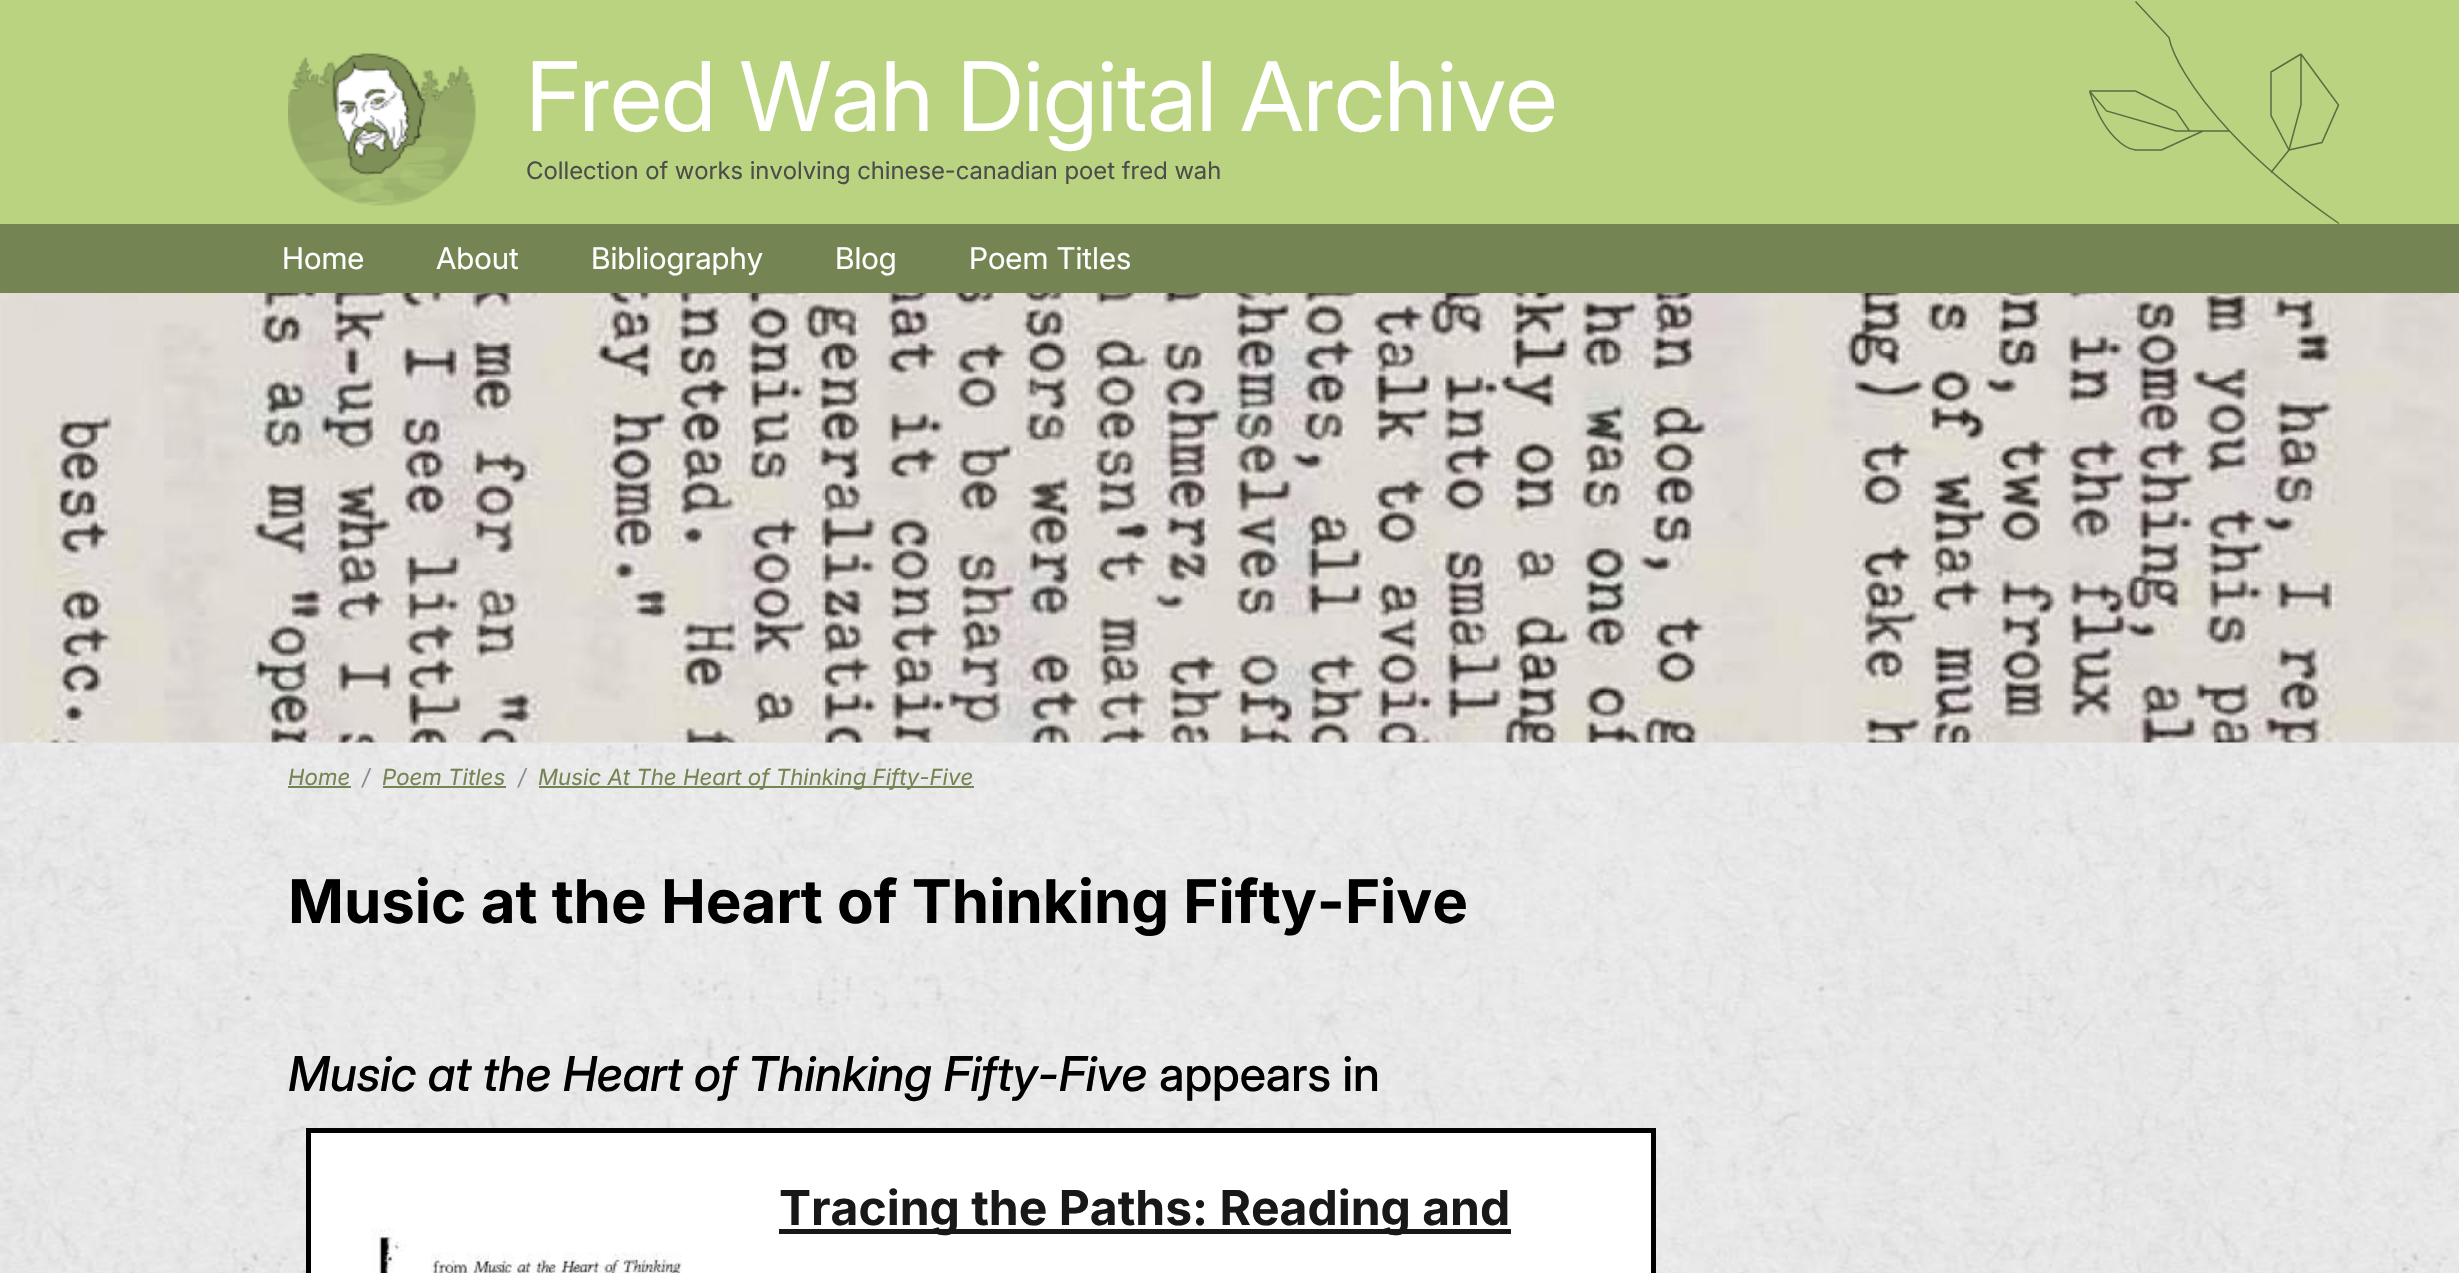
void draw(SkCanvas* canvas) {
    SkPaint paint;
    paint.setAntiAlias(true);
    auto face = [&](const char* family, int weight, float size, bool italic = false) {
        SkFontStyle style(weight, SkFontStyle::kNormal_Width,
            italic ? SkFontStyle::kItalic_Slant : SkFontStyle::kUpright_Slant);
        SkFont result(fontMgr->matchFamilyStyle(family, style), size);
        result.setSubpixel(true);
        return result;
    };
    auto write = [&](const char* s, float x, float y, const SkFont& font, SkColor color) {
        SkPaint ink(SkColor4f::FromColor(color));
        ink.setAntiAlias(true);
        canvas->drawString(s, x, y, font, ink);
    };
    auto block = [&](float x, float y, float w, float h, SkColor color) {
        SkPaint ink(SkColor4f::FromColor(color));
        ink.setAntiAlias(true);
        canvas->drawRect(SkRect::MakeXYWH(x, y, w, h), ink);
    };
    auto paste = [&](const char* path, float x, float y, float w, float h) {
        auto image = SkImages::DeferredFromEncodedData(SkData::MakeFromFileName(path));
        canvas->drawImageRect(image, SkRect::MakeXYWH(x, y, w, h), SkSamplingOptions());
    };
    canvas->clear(SK_ColorWHITE);
    paste("pic1.png", 0, 742, 2459, 531);
    block(0, 0, 2459, 224, SkColorSetRGB(185, 211, 128));
    paste("pic2.png", 288, 53, 188, 153);
    auto kFont1 = face("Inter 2", 400, 96);
    write("Fred Wah Digital Archive", 526, 131, kFont1, SK_ColorWHITE);
    auto kFont2 = face("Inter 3", 400, 24);
    write("Collection of works involving chinese-canadian poet fred wah", 526, 179, kFont2, SkColorSetRGB(76, 76, 76));
    paint.setStyle(SkPaint::kStroke_Style);
    paint.setStrokeWidth(1.5f);
    paint.setColor(SkColorSetRGB(93, 106, 64));
    canvas->drawPath(SkPathBuilder().moveTo(2271, 172.5f).lineTo(2289, 150).moveTo(2289, 150).lineTo(2301, 105).lineTo(2301, 54).moveTo(2289, 150).lineTo(2322, 142.5f).lineTo(2338.5f, 105).lineTo(2301, 54).moveTo(2289, 150).lineTo(2271, 115.5f).lineTo(2271, 72).lineTo(2301, 54).detach(), paint);
    block(0, 224, 2459, 69, SkColorSetRGB(116, 132, 82));
    paint.setStrokeWidth(1.4f);
    canvas->drawPath(SkPathBuilder().moveTo(2339, 223.5f).cubicTo(2291, 190.5f, 2255.5f, 159, 2229.5f, 131).moveTo(2135.5f, 1.5f).lineTo(2169, 37.5f).cubicTo(2172, 53.5f, 2189, 87.5f, 2229.5f, 131).moveTo(2229.5f, 131).lineTo(2203, 131).moveTo(2089.5f, 91).lineTo(2106.5f, 111).lineTo(2176, 131).lineTo(2189.5f, 131).moveTo(2089.5f, 91).cubicTo(2103.5f, 136, 2126, 149, 2135.5f, 150).lineTo(2161.5f, 150).lineTo(2203, 131).moveTo(2089.5f, 91).lineTo(2135.5f, 91).lineTo(2176, 111).lineTo(2189.5f, 131).moveTo(2203, 131).lineTo(2189.5f, 131).detach(), paint);
    auto kFont3 = face("Inter", 400, 30);
    write("Home", 282, 269, kFont3, SK_ColorWHITE);
    write("About", 436, 269, kFont3, SK_ColorWHITE);
    write("Bibliography", 591, 269, kFont3, SK_ColorWHITE);
    write("Blog", 835, 269, kFont3, SK_ColorWHITE);
    write("Poem Titles", 969, 269, kFont3, SK_ColorWHITE);
    paste("pic3.png", 0, 293, 2459, 450);
    auto kFont4 = face("Inter", 400, 22.25f, true);
    write("Home", 288, 785, kFont4, SkColorSetRGB(116, 132, 82));
    block(288, 786, 63, 2, SkColorSetRGB(116, 132, 82));
    write("/", 362, 785, kFont4, SkColorSetRGB(134, 142, 150));
    write("Poem Titles", 382, 785, kFont4, SkColorSetRGB(116, 132, 82));
    block(383, 786, 123, 2, SkColorSetRGB(116, 132, 82));
    write("/", 518, 785, kFont4, SkColorSetRGB(134, 142, 150));
    block(539, 786, 435, 2, SkColorSetRGB(116, 132, 82));
    write("Music At The Heart of Thinking Fifty-Five", 538, 785, kFont4, SkColorSetRGB(116, 132, 82));
    auto kFont5 = face("Inter", 700, 60);
    write("Music at the Heart of Thinking Fifty-Five", 288, 923, kFont5, SK_ColorBLACK);
    auto kFont6 = face("Inter", 500, 48, true);
    write("Music at the Heart of Thinking Fifty-Five", 288, 1091, kFont6, SK_ColorBLACK);
    auto kFont7 = face("Inter", 500, 48);
    write("appears in", 1159, 1091, kFont7, SK_ColorBLACK);
    paint.setStyle(SkPaint::kFill_Style);
    paint.setColor(SK_ColorWHITE);
    canvas->drawRect(SkRect::MakeXYWH(308.5f, 1130.5f, 1345, 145), paint);
    paint.setStyle(SkPaint::kStroke_Style);
    paint.setStrokeWidth(5);
    paint.setColor(SK_ColorBLACK);
    canvas->drawRect(SkRect::MakeXYWH(308.5f, 1130.5f, 1345, 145), paint);
    block(779, 1229, 732, 5, SkColorSetRGB(24, 24, 24));
    auto kFont8 = face("Inter", 700, 48);
    write("Tracing the Paths: Reading and", 779, 1225, kFont8, SkColorSetRGB(24, 24, 24));
    paste("pic4.png", 371, 1228, 311, 45);
}
